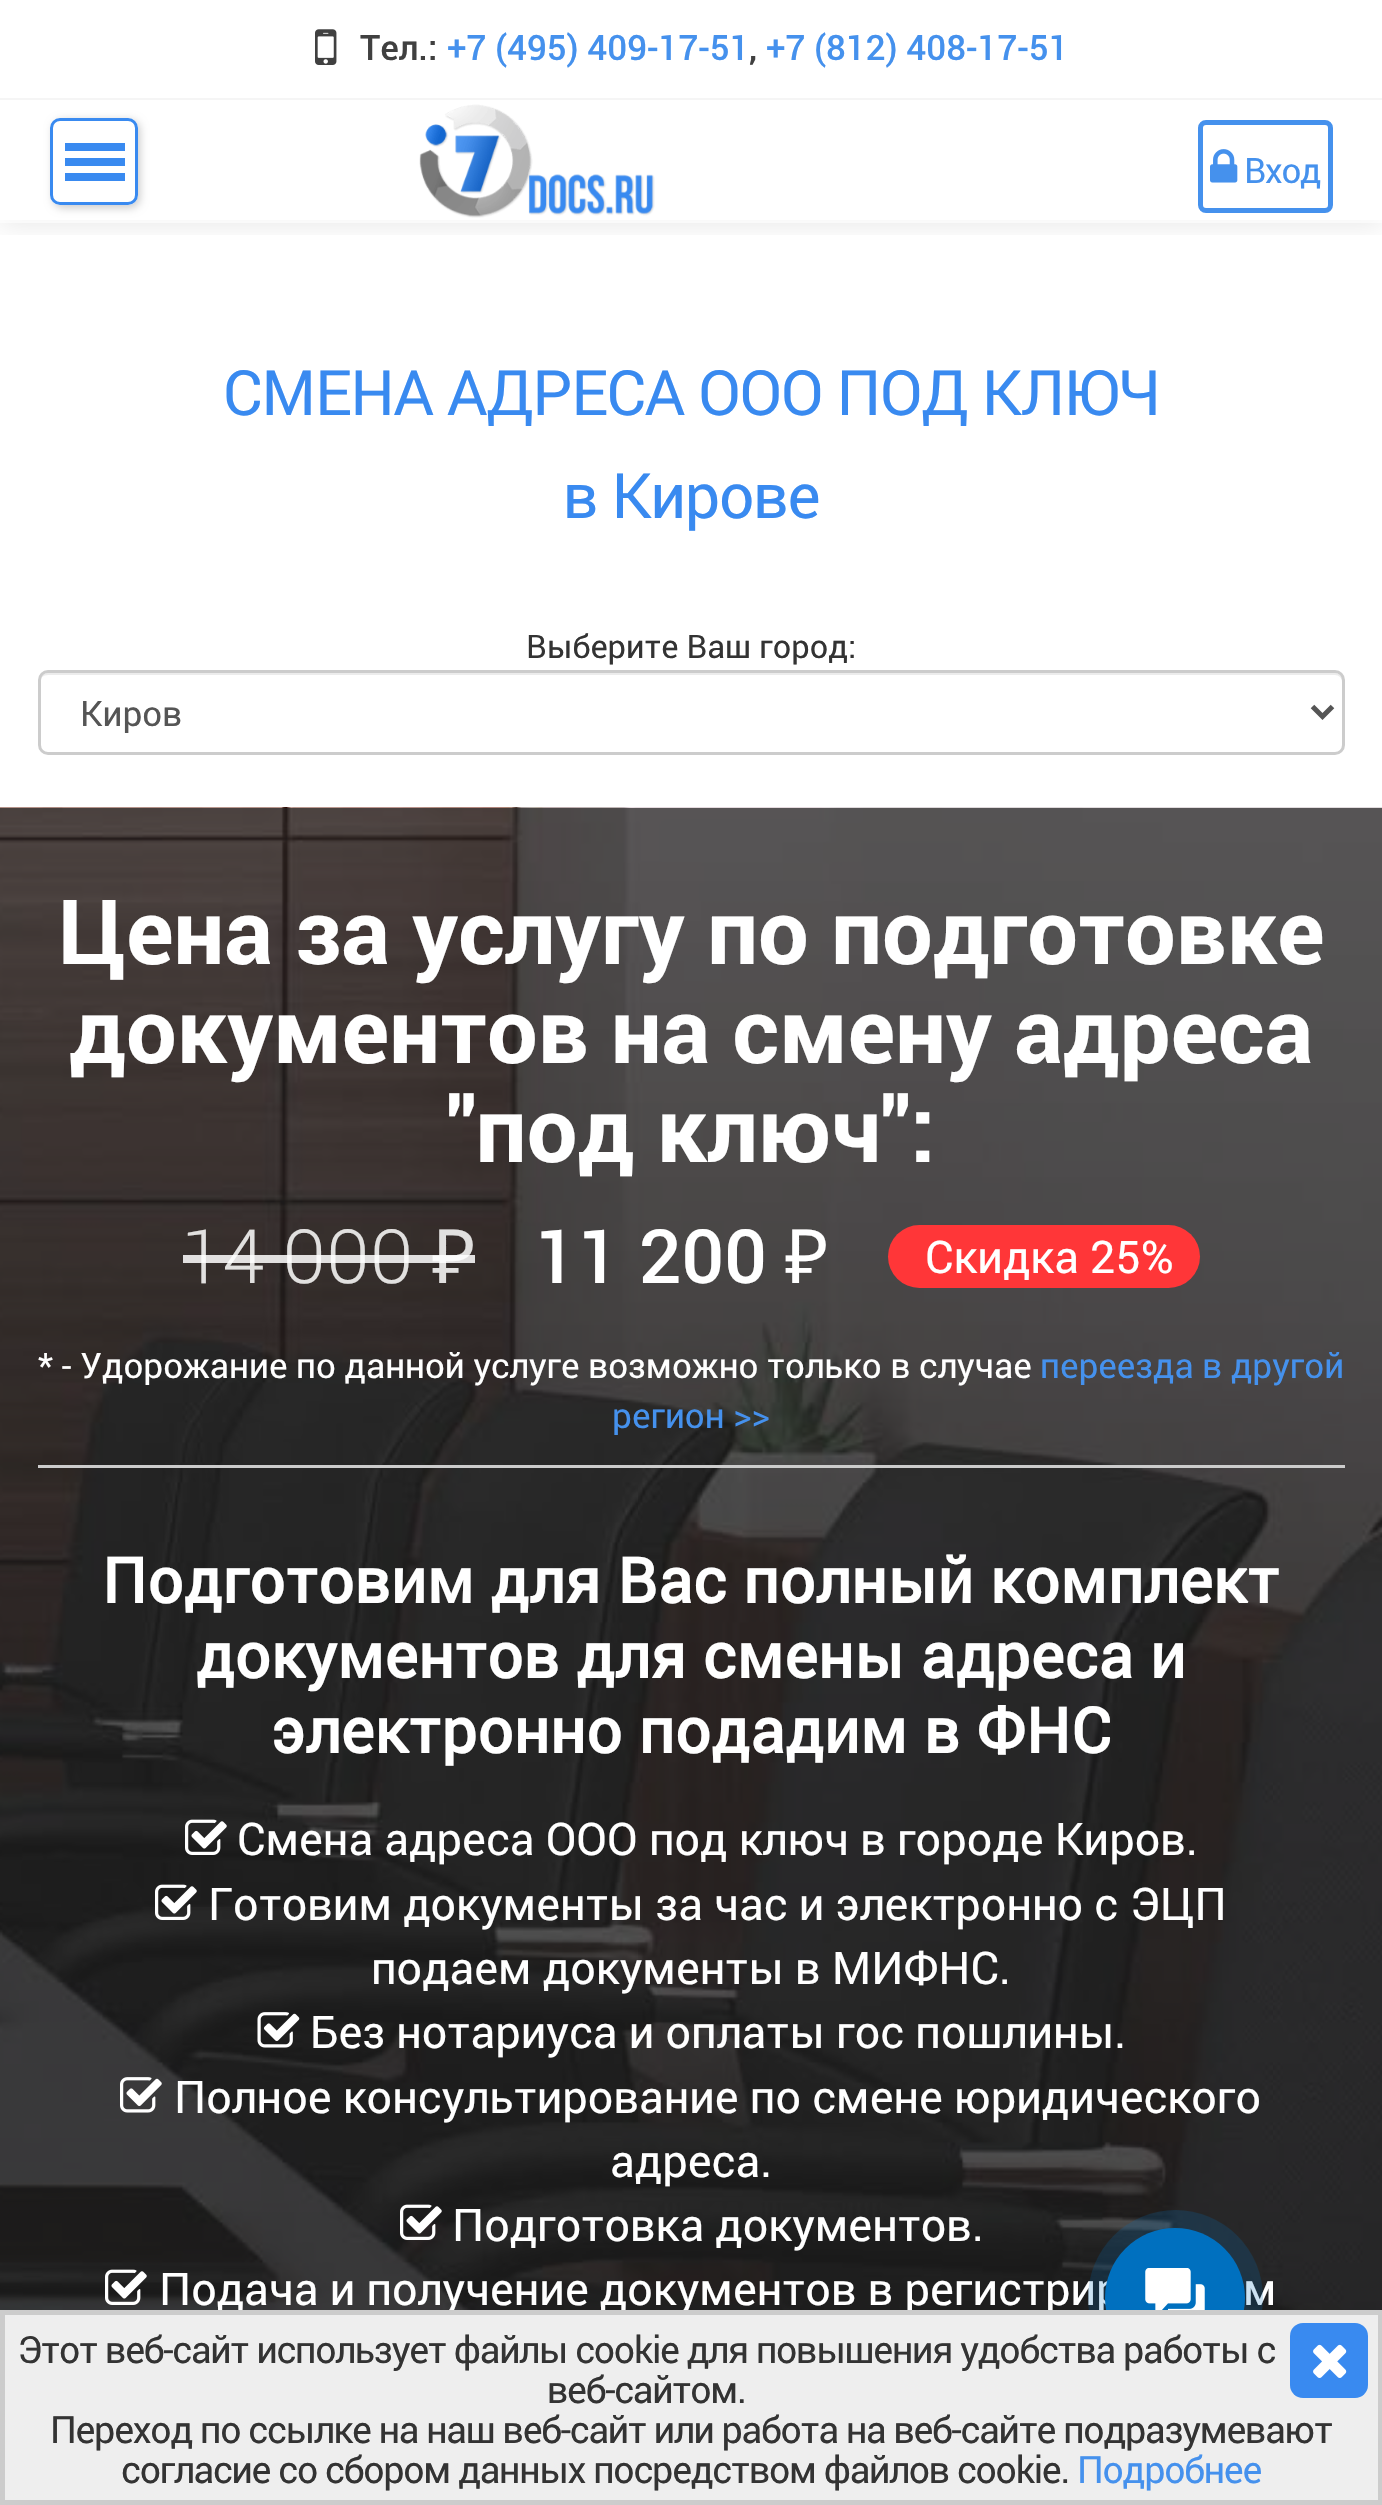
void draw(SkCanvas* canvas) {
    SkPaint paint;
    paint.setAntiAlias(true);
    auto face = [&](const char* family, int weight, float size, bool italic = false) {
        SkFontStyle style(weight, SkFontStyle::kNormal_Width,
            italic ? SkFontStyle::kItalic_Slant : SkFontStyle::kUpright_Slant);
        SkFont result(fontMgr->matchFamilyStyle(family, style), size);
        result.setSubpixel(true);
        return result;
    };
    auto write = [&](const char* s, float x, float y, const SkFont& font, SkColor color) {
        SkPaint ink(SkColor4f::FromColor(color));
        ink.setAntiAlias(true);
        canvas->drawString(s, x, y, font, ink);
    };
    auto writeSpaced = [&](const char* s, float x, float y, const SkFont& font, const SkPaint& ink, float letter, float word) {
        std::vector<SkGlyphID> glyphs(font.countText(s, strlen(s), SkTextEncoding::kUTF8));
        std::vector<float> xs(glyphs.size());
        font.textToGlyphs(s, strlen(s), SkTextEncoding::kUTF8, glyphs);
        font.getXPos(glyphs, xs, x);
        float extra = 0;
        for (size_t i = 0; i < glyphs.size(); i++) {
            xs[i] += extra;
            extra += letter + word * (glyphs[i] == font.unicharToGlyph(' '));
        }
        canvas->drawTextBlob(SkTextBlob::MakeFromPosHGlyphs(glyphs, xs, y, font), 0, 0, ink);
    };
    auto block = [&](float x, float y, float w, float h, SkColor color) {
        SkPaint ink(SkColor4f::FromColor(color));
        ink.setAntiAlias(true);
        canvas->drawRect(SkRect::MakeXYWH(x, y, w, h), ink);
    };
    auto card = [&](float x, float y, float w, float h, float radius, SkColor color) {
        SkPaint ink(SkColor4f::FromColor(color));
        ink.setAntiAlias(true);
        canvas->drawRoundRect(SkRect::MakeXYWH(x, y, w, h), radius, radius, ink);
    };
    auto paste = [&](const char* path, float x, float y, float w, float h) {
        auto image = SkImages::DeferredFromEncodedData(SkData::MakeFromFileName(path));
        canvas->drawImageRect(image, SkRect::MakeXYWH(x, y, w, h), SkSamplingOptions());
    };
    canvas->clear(SK_ColorWHITE);
    canvas->save();
    canvas->clipRect(SkRect::MakeXYWH(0, 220, 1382, 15));
    paint.setColor(SkColorSetARGB(23, 0, 0, 0));
    paint.setMaskFilter(SkMaskFilter::MakeBlur(kNormal_SkBlurStyle, 12.5f));
    canvas->drawRect(SkRect::MakeXYWH(0, 5, 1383, 220), paint);
    paint.setMaskFilter(nullptr);
    canvas->restore();
    block(0, 98, 1382, 2, SkColorSetRGB(245, 245, 245));
    paste("pic1.png", 315, 29, 22, 36);
    auto kFont1 = face("Roboto", 500, 35);
    write("Тел.:", 360, 60, kFont1, SkColorSetRGB(64, 64, 64));
    write("+7 (495) 409-17-51", 447, 60, kFont1, SkColorSetRGB(69, 145, 237));
    write(",", 749, 60, kFont1, SkColorSetRGB(64, 64, 64));
    write("+7 (812) 408-17-51", 766, 60, kFont1, SkColorSetRGB(69, 145, 237));
    paint.setColor(SkColorSetARGB(153, 255, 255, 255));
    canvas->drawPath(SkPathBuilder().moveTo(0, 220).lineTo(0, 223).lineTo(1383, 223).lineTo(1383, 103).lineTo(1382, 103).lineTo(1382, 220).close().detach(), paint);
    canvas->save();
    canvas->clipPath(SkPathBuilder(SkPathFillType::kEvenOdd).moveTo(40, 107).lineTo(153, 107).lineTo(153, 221).lineTo(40, 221).close().moveTo(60, 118).lineTo(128, 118).cubicTo(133.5f, 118, 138, 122.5f, 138, 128).lineTo(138, 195).cubicTo(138, 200.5f, 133.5f, 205, 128, 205).lineTo(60, 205).cubicTo(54.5f, 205, 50, 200.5f, 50, 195).lineTo(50, 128).cubicTo(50, 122.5f, 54.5f, 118, 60, 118).close().detach(), true);
    paint.setColor(SkColorSetARGB(51, 0, 0, 0));
    paint.setMaskFilter(SkMaskFilter::MakeBlur(kNormal_SkBlurStyle, 4));
    canvas->drawRoundRect(SkRect::MakeXYWH(53, 120, 87, 88), 10, 10, paint);
    paint.setMaskFilter(nullptr);
    canvas->restore();
    paint.setStyle(SkPaint::kStroke_Style);
    paint.setStrokeWidth(3);
    paint.setColor(SkColorSetRGB(57, 138, 240));
    canvas->drawRoundRect(SkRect::MakeXYWH(51.5f, 119.5f, 85, 84), 8.5f, 8.5f, paint);
    block(65, 158, 60, 8, SkColorSetRGB(57, 138, 240));
    block(65, 143, 60, 8, SkColorSetRGB(57, 138, 240));
    block(65, 173, 60, 8, SkColorSetRGB(57, 138, 240));
    paste("pic2.png", 419, 104, 236, 114);
    paint.setStrokeWidth(5);
    paint.setColor(SkColorSetRGB(69, 145, 237));
    canvas->drawRoundRect(SkRect::MakeXYWH(1200.5f, 122.5f, 130, 88), 5.5f, 5.5f, paint);
    paste("pic3.png", 1210, 149, 28, 34);
    auto kFont2 = face("Roboto", 400, 35);
    paint.setStyle(SkPaint::kFill_Style);
    writeSpaced("Вход", 1244, 183, kFont2, paint, -1.25f, 0);
    auto kFont3 = face("Roboto", 400, 62.5f);
    paint.setColor(SkColorSetRGB(57, 138, 240));
    writeSpaced("СМЕНА АДРЕСА ООО ПОД КЛЮЧ", 223, 415, kFont3, paint, -1.25f, 0);
    writeSpaced("в Кирове", 563, 518, kFont3, paint, -1.25f, 0);
    auto kFont4 = face("Roboto", 400, 32.5f);
    write("Выберите Ваш город:", 526, 658, kFont4, SkColorSetRGB(51, 51, 51));
    paint.setColor(SkColorSetRGB(236, 236, 236));
    canvas->drawPath(SkPathBuilder().moveTo(48, 675).lineTo(1335, 675).cubicTo(1339, 675, 1342, 678, 1342, 682).lineTo(1342, 749).cubicTo(1343, 748, 1343, 746, 1343, 745).lineTo(1343, 681).cubicTo(1343, 677, 1339, 673, 1335, 673).lineTo(48, 673).cubicTo(44, 673, 40, 677, 40, 681).lineTo(40, 682).cubicTo(40, 678, 43, 675, 48, 675).close().detach(), paint);
    paint.setStyle(SkPaint::kStroke_Style);
    paint.setStrokeWidth(3);
    paint.setColor(SkColorSetRGB(204, 204, 204));
    canvas->drawRoundRect(SkRect::MakeXYWH(39.5f, 671.5f, 1304, 82), 8.5f, 8.5f, paint);
    paint.setStrokeWidth(5);
    paint.setColor(SkColorSetRGB(85, 85, 85));
    canvas->drawPath(SkPathBuilder().moveTo(1312.5f, 706.5f).lineTo(1322.5f, 716.5f).lineTo(1332.5f, 706.5f).detach(), paint);
    write("Киров", 80, 726, kFont2, SkColorSetRGB(85, 85, 85));
    paste("pic4.png", 0, 807, 1382, 1503);
    auto kFont5 = face("Roboto", 700, 90);
    write("Цена за услугу по подготовке", 57, 964, kFont5, SK_ColorWHITE);
    write("документов на смену адреса", 69, 1063, kFont5, SK_ColorWHITE);
    write("\"под ключ\":", 447, 1162, kFont5, SK_ColorWHITE);
    auto kFont6 = face("Roboto", 300, 75);
    write("14 000", 181, 1283, kFont6, SkColorSetRGB(225, 224, 223));
    auto kFont7 = face("Noto Sans", 400, 75);
    write("₽", 432, 1283, kFont7, SkColorSetRGB(225, 224, 223));
    block(183, 1255, 292, 8, SkColorSetARGB(217, 255, 255, 255));
    auto kFont8 = face("Roboto", 500, 75);
    write("11 200", 535, 1283, kFont8, SK_ColorWHITE);
    write("₽", 785, 1283, kFont7, SK_ColorWHITE);
    card(888, 1225, 312, 63, 31.5f, SkColorSetRGB(255, 54, 56));
    auto kFont9 = face("Roboto", 400, 45);
    write("Скидка 25%", 925, 1273, kFont9, SK_ColorWHITE);
    write("* - Удорожание по данной услуге возможно только в случае", 38, 1378, kFont2, SK_ColorWHITE);
    write("переезда в другой", 1040, 1378, kFont2, SkColorSetRGB(69, 145, 237));
    write("регион >>", 612, 1428, kFont2, SkColorSetRGB(69, 145, 237));
    block(38, 1465, 1307, 3, SkColorSetRGB(204, 204, 204));
    auto kFont10 = face("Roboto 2", 700, 62.5f);
    paint.setStyle(SkPaint::kFill_Style);
    paint.setColor(SK_ColorWHITE);
    writeSpaced("Подготовим для Вас полный комплект", 102, 1603, kFont10, paint, 0.75f, 0);
    writeSpaced("документов для смены адреса и", 196, 1678, kFont10, paint, 0.75f, 0);
    writeSpaced("электронно подадим в ФНС", 271, 1753, kFont10, paint, 0.75f, 0);
    paste("pic5.png", 185, 1819, 42, 36);
    write("Смена адреса ООО под ключ в городе Киров.", 237, 1855, kFont9, SK_ColorWHITE);
    paste("pic6.png", 155, 1884, 42, 36);
    write("Готовим документы за час и электронно с ЭЦП", 208, 1920, kFont9, SK_ColorWHITE);
    write("подаем документы в МИФНС.", 371, 1984, kFont9, SK_ColorWHITE);
    paste("pic7.png", 257, 2012, 43, 36);
    write("Без нотариуса и оплаты гос пошлины.", 310, 2048, kFont9, SK_ColorWHITE);
    paste("pic8.png", 120, 2077, 42, 36);
    write("Полное консультирование по смене юридического", 174, 2113, kFont9, SK_ColorWHITE);
    write("адреса.", 610, 2177, kFont9, SK_ColorWHITE);
    paste("pic9.png", 400, 2204, 42, 36);
    write("Подготовка документов.", 452, 2241, kFont9, SK_ColorWHITE);
    paste("pic10.png", 105, 2269, 42, 36);
    write("Подача и получение документов в регистрир", 159, 2305, kFont9, SK_ColorWHITE);
    write("м", 1243, 2305, kFont9, SK_ColorWHITE);
    paint.setColor(SkColorSetARGB(51, 0, 112, 191));
    canvas->drawCircle(1175.5f, 2297.5f, 87.5f, paint);
    paint.setColor(SkColorSetRGB(0, 112, 191));
    canvas->drawCircle(1175, 2298, 70, paint);
    paint.setColor(SkColorSetRGB(238, 238, 238));
    canvas->drawRect(SkRect::MakeXYWH(2.5f, 2312.5f, 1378, 190), paint);
    paint.setStyle(SkPaint::kStroke_Style);
    paint.setColor(SkColorSetRGB(204, 204, 204));
    canvas->drawRect(SkRect::MakeXYWH(2.5f, 2312.5f, 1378, 190), paint);
    card(1290, 2323, 78, 75, 13, SkColorSetRGB(57, 138, 240));
    paste("pic11.png", 1313, 2344, 34, 34);
    auto kFont11 = face("Roboto", 400, 37.5f);
    paint.setStyle(SkPaint::kFill_Style);
    paint.setColor(SkColorSetRGB(51, 51, 51));
    writeSpaced("Этот веб-сайт использует файлы cookie для повышения удобства работы с", 17, 2363, kFont11, paint, -1.25f, 0);
    writeSpaced("веб-сайтом.", 547, 2403, kFont11, paint, -1.25f, 0);
    writeSpaced("Переход по ссылке на наш веб-сайт или работа на веб-сайте подразумевают", 50, 2443, kFont11, paint, -1.25f, 0);
    writeSpaced("согласие со сбором данных посредством файлов cookie.", 121, 2483, kFont11, paint, -1.25f, 0);
    paint.setColor(SkColorSetRGB(69, 145, 237));
    writeSpaced("Подробнее", 1077, 2483, kFont11, paint, -1.25f, 0);
    paste("pic12.png", 1145, 2268, 60, 42);
}
